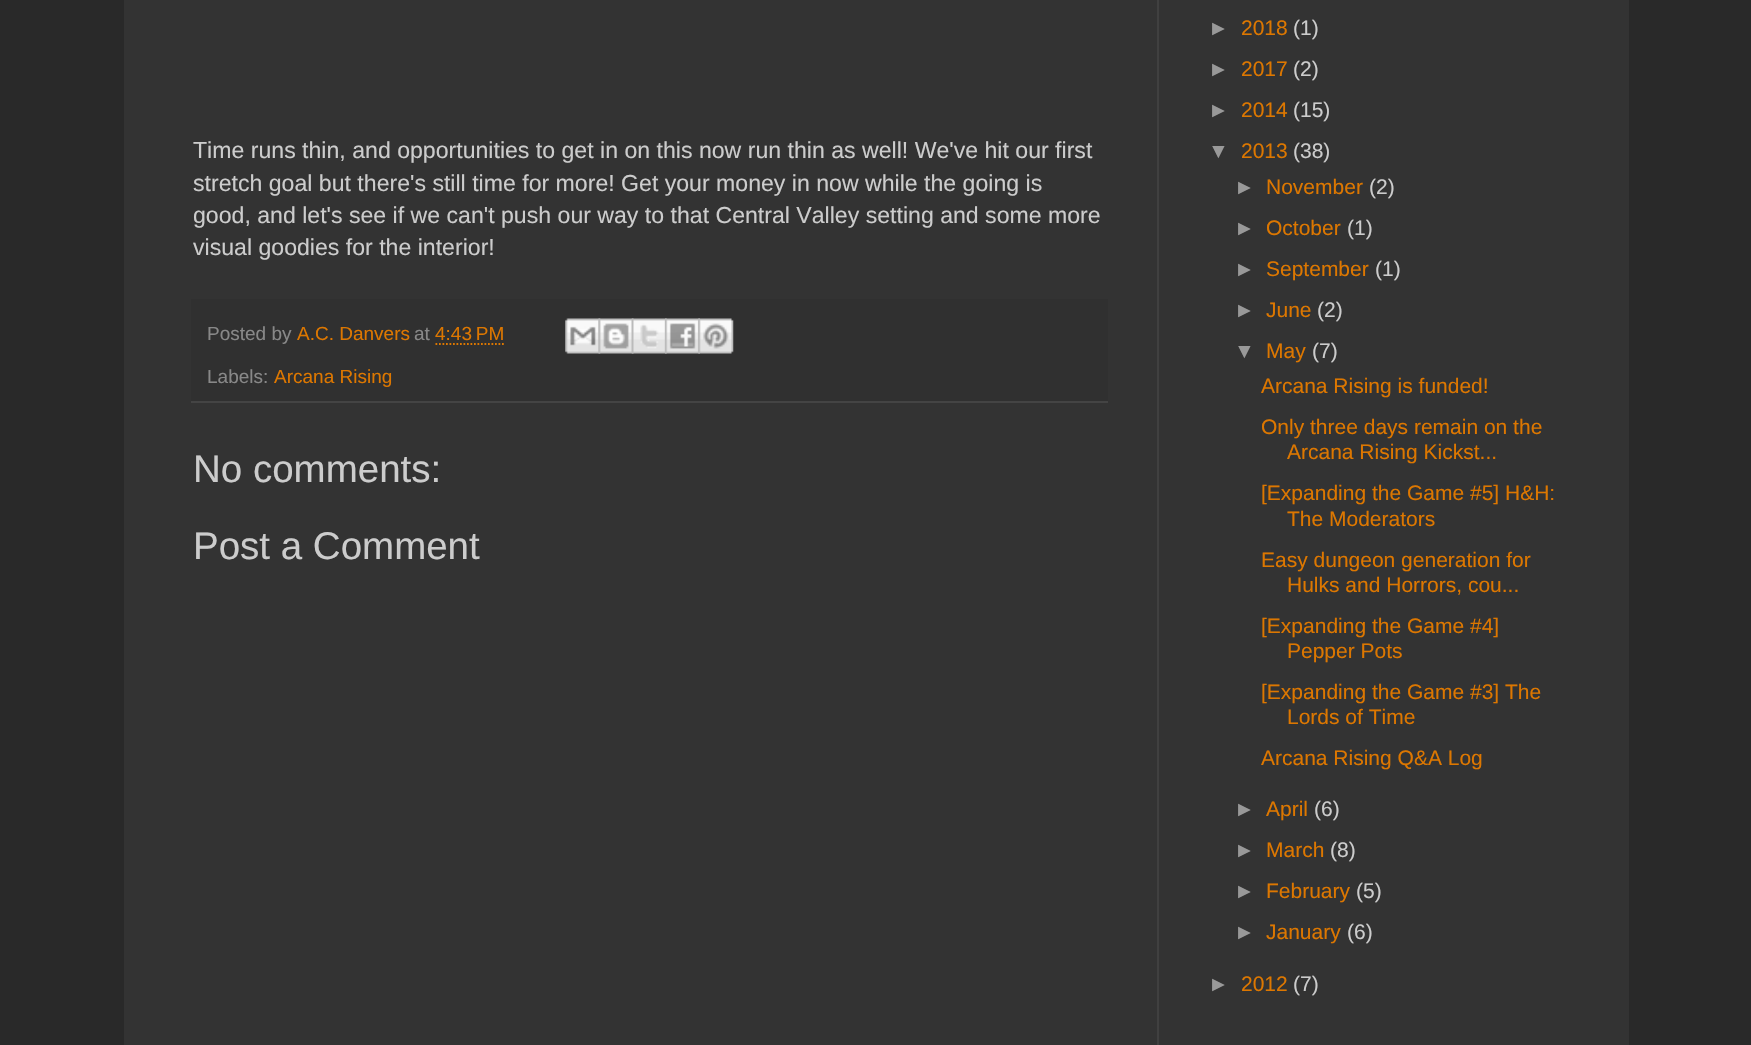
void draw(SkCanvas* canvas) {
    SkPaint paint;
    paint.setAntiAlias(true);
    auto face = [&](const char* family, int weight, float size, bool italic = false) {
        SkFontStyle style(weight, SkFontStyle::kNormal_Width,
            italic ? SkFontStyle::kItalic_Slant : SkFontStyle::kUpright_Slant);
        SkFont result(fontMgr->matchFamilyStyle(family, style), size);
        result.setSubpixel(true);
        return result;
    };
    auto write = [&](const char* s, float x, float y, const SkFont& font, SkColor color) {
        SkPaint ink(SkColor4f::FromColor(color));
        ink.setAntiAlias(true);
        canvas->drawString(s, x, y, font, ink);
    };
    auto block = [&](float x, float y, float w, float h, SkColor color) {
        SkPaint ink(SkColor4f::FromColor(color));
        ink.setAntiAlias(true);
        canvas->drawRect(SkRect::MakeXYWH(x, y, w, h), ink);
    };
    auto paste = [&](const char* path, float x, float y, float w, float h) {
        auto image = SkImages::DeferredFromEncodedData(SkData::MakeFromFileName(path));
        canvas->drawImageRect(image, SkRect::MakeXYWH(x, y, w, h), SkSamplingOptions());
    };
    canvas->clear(SkColorSetRGB(41, 41, 41));
    block(124, 0, 1505, 1045, SkColorSetRGB(51, 51, 51));
    block(1157, 0, 2, 1045, SkColorSetRGB(64, 64, 64));
    auto kFont1 = face("Liberation Sans", 400, 23.1f);
    write("Time runs thin, and opportunities to get in on this now run thin as well! We've hit our first", 193, 158, kFont1, SkColorSetRGB(204, 204, 204));
    write("stretch goal but there's still time for more! Get your money in now while the going is", 193, 191, kFont1, SkColorSetRGB(204, 204, 204));
    write("good, and let's see if we can't push our way to that Central Valley setting and some more", 193, 223, kFont1, SkColorSetRGB(204, 204, 204));
    write("visual goodies for the interior!", 193, 255, kFont1, SkColorSetRGB(204, 204, 204));
    block(191, 299, 917, 102, SkColorSetRGB(48, 48, 48));
    block(191, 401, 917, 2, SkColorSetRGB(68, 68, 68));
    auto kFont2 = face("Liberation Sans", 400, 19);
    write("Posted by", 207, 340, kFont2, SkColorSetRGB(136, 136, 136));
    write("A.C. Danvers", 297, 340, kFont2, SkColorSetRGB(221, 119, 0));
    write("at", 414, 340, kFont2, SkColorSetRGB(136, 136, 136));
    write("4:43 PM", 435, 340, kFont2, SkColorSetRGB(221, 119, 0));
    paint.setStyle(SkPaint::kStroke_Style);
    paint.setStrokeWidth(1.8f);
    paint.setColor(SkColorSetRGB(221, 119, 0));
    paint.setPathEffect(SkDashPathEffect::Make({{1.75f, 1.75f}}, 0));
    canvas->drawPath(SkPathBuilder().moveTo(435.5f, 344).lineTo(504, 344).detach(), paint);
    paint.setPathEffect(nullptr);
    paste("pic1.png", 565, 318, 36, 36);
    paste("pic2.png", 598, 318, 36, 36);
    paste("pic3.png", 631, 318, 36, 36);
    paste("pic4.png", 665, 318, 35, 36);
    paste("pic5.png", 698, 318, 36, 36);
    write("Labels:", 207, 383, kFont2, SkColorSetRGB(136, 136, 136));
    write("Arcana Rising", 274, 383, kFont2, SkColorSetRGB(221, 119, 0));
    auto kFont3 = face("Liberation Sans", 400, 38.5f);
    write("No comments:", 193, 482, kFont3, SkColorSetRGB(204, 204, 204));
    write("Post a Comment", 193, 559, kFont3, SkColorSetRGB(204, 204, 204));
    auto kFont4 = face("Liberation Sans", 400, 21);
    write("►", 1208, 35, kFont4, SkColorSetRGB(153, 153, 153));
    write("2018", 1241, 35, kFont4, SkColorSetRGB(221, 119, 0));
    write("(1)", 1293, 35, kFont4, SkColorSetRGB(204, 204, 204));
    write("►", 1208, 76, kFont4, SkColorSetRGB(153, 153, 153));
    write("2017", 1241, 76, kFont4, SkColorSetRGB(221, 119, 0));
    write("(2)", 1293, 76, kFont4, SkColorSetRGB(204, 204, 204));
    write("►", 1208, 117, kFont4, SkColorSetRGB(153, 153, 153));
    write("2014", 1241, 117, kFont4, SkColorSetRGB(221, 119, 0));
    write("(15)", 1293, 117, kFont4, SkColorSetRGB(204, 204, 204));
    write("▼", 1208, 158, kFont4, SkColorSetRGB(153, 153, 153));
    write("2013", 1241, 158, kFont4, SkColorSetRGB(221, 119, 0));
    write("(38)", 1293, 158, kFont4, SkColorSetRGB(204, 204, 204));
    write("►", 1234, 194, kFont4, SkColorSetRGB(153, 153, 153));
    write("November", 1266, 194, kFont4, SkColorSetRGB(221, 119, 0));
    write("(2)", 1369, 194, kFont4, SkColorSetRGB(204, 204, 204));
    write("►", 1234, 235, kFont4, SkColorSetRGB(153, 153, 153));
    write("October", 1266, 235, kFont4, SkColorSetRGB(221, 119, 0));
    write("(1)", 1347, 235, kFont4, SkColorSetRGB(204, 204, 204));
    write("►", 1234, 276, kFont4, SkColorSetRGB(153, 153, 153));
    write("September", 1266, 276, kFont4, SkColorSetRGB(221, 119, 0));
    write("(1)", 1375, 276, kFont4, SkColorSetRGB(204, 204, 204));
    write("►", 1234, 317, kFont4, SkColorSetRGB(153, 153, 153));
    write("June", 1266, 317, kFont4, SkColorSetRGB(221, 119, 0));
    write("(2)", 1317, 317, kFont4, SkColorSetRGB(204, 204, 204));
    write("▼", 1234, 358, kFont4, SkColorSetRGB(153, 153, 153));
    write("May", 1266, 358, kFont4, SkColorSetRGB(221, 119, 0));
    write("(7)", 1312, 358, kFont4, SkColorSetRGB(204, 204, 204));
    write("Arcana Rising is funded!", 1261, 393, kFont4, SkColorSetRGB(221, 119, 0));
    write("Only three days remain on the", 1261, 434, kFont4, SkColorSetRGB(221, 119, 0));
    write("Arcana Rising Kickst...", 1287, 459, kFont4, SkColorSetRGB(221, 119, 0));
    write("[Expanding the Game #5] H&H:", 1261, 500, kFont4, SkColorSetRGB(221, 119, 0));
    write("The Moderators", 1287, 526, kFont4, SkColorSetRGB(221, 119, 0));
    write("Easy dungeon generation for", 1261, 567, kFont4, SkColorSetRGB(221, 119, 0));
    write("Hulks and Horrors, cou...", 1287, 592, kFont4, SkColorSetRGB(221, 119, 0));
    write("[Expanding the Game #4]", 1261, 633, kFont4, SkColorSetRGB(221, 119, 0));
    write("Pepper Pots", 1287, 658, kFont4, SkColorSetRGB(221, 119, 0));
    write("[Expanding the Game #3] The", 1261, 699, kFont4, SkColorSetRGB(221, 119, 0));
    write("Lords of Time", 1287, 724, kFont4, SkColorSetRGB(221, 119, 0));
    write("Arcana Rising Q&A Log", 1261, 765, kFont4, SkColorSetRGB(221, 119, 0));
    write("►", 1234, 816, kFont4, SkColorSetRGB(153, 153, 153));
    write("April", 1266, 816, kFont4, SkColorSetRGB(221, 119, 0));
    write("(6)", 1314, 816, kFont4, SkColorSetRGB(204, 204, 204));
    write("►", 1234, 857, kFont4, SkColorSetRGB(153, 153, 153));
    write("March", 1266, 857, kFont4, SkColorSetRGB(221, 119, 0));
    write("(8)", 1330, 857, kFont4, SkColorSetRGB(204, 204, 204));
    write("►", 1234, 898, kFont4, SkColorSetRGB(153, 153, 153));
    write("February", 1266, 898, kFont4, SkColorSetRGB(221, 119, 0));
    write("(5)", 1356, 898, kFont4, SkColorSetRGB(204, 204, 204));
    write("►", 1234, 939, kFont4, SkColorSetRGB(153, 153, 153));
    write("January", 1266, 939, kFont4, SkColorSetRGB(221, 119, 0));
    write("(6)", 1347, 939, kFont4, SkColorSetRGB(204, 204, 204));
    write("►", 1208, 991, kFont4, SkColorSetRGB(153, 153, 153));
    write("2012", 1241, 991, kFont4, SkColorSetRGB(221, 119, 0));
    write("(7)", 1293, 991, kFont4, SkColorSetRGB(204, 204, 204));
}
